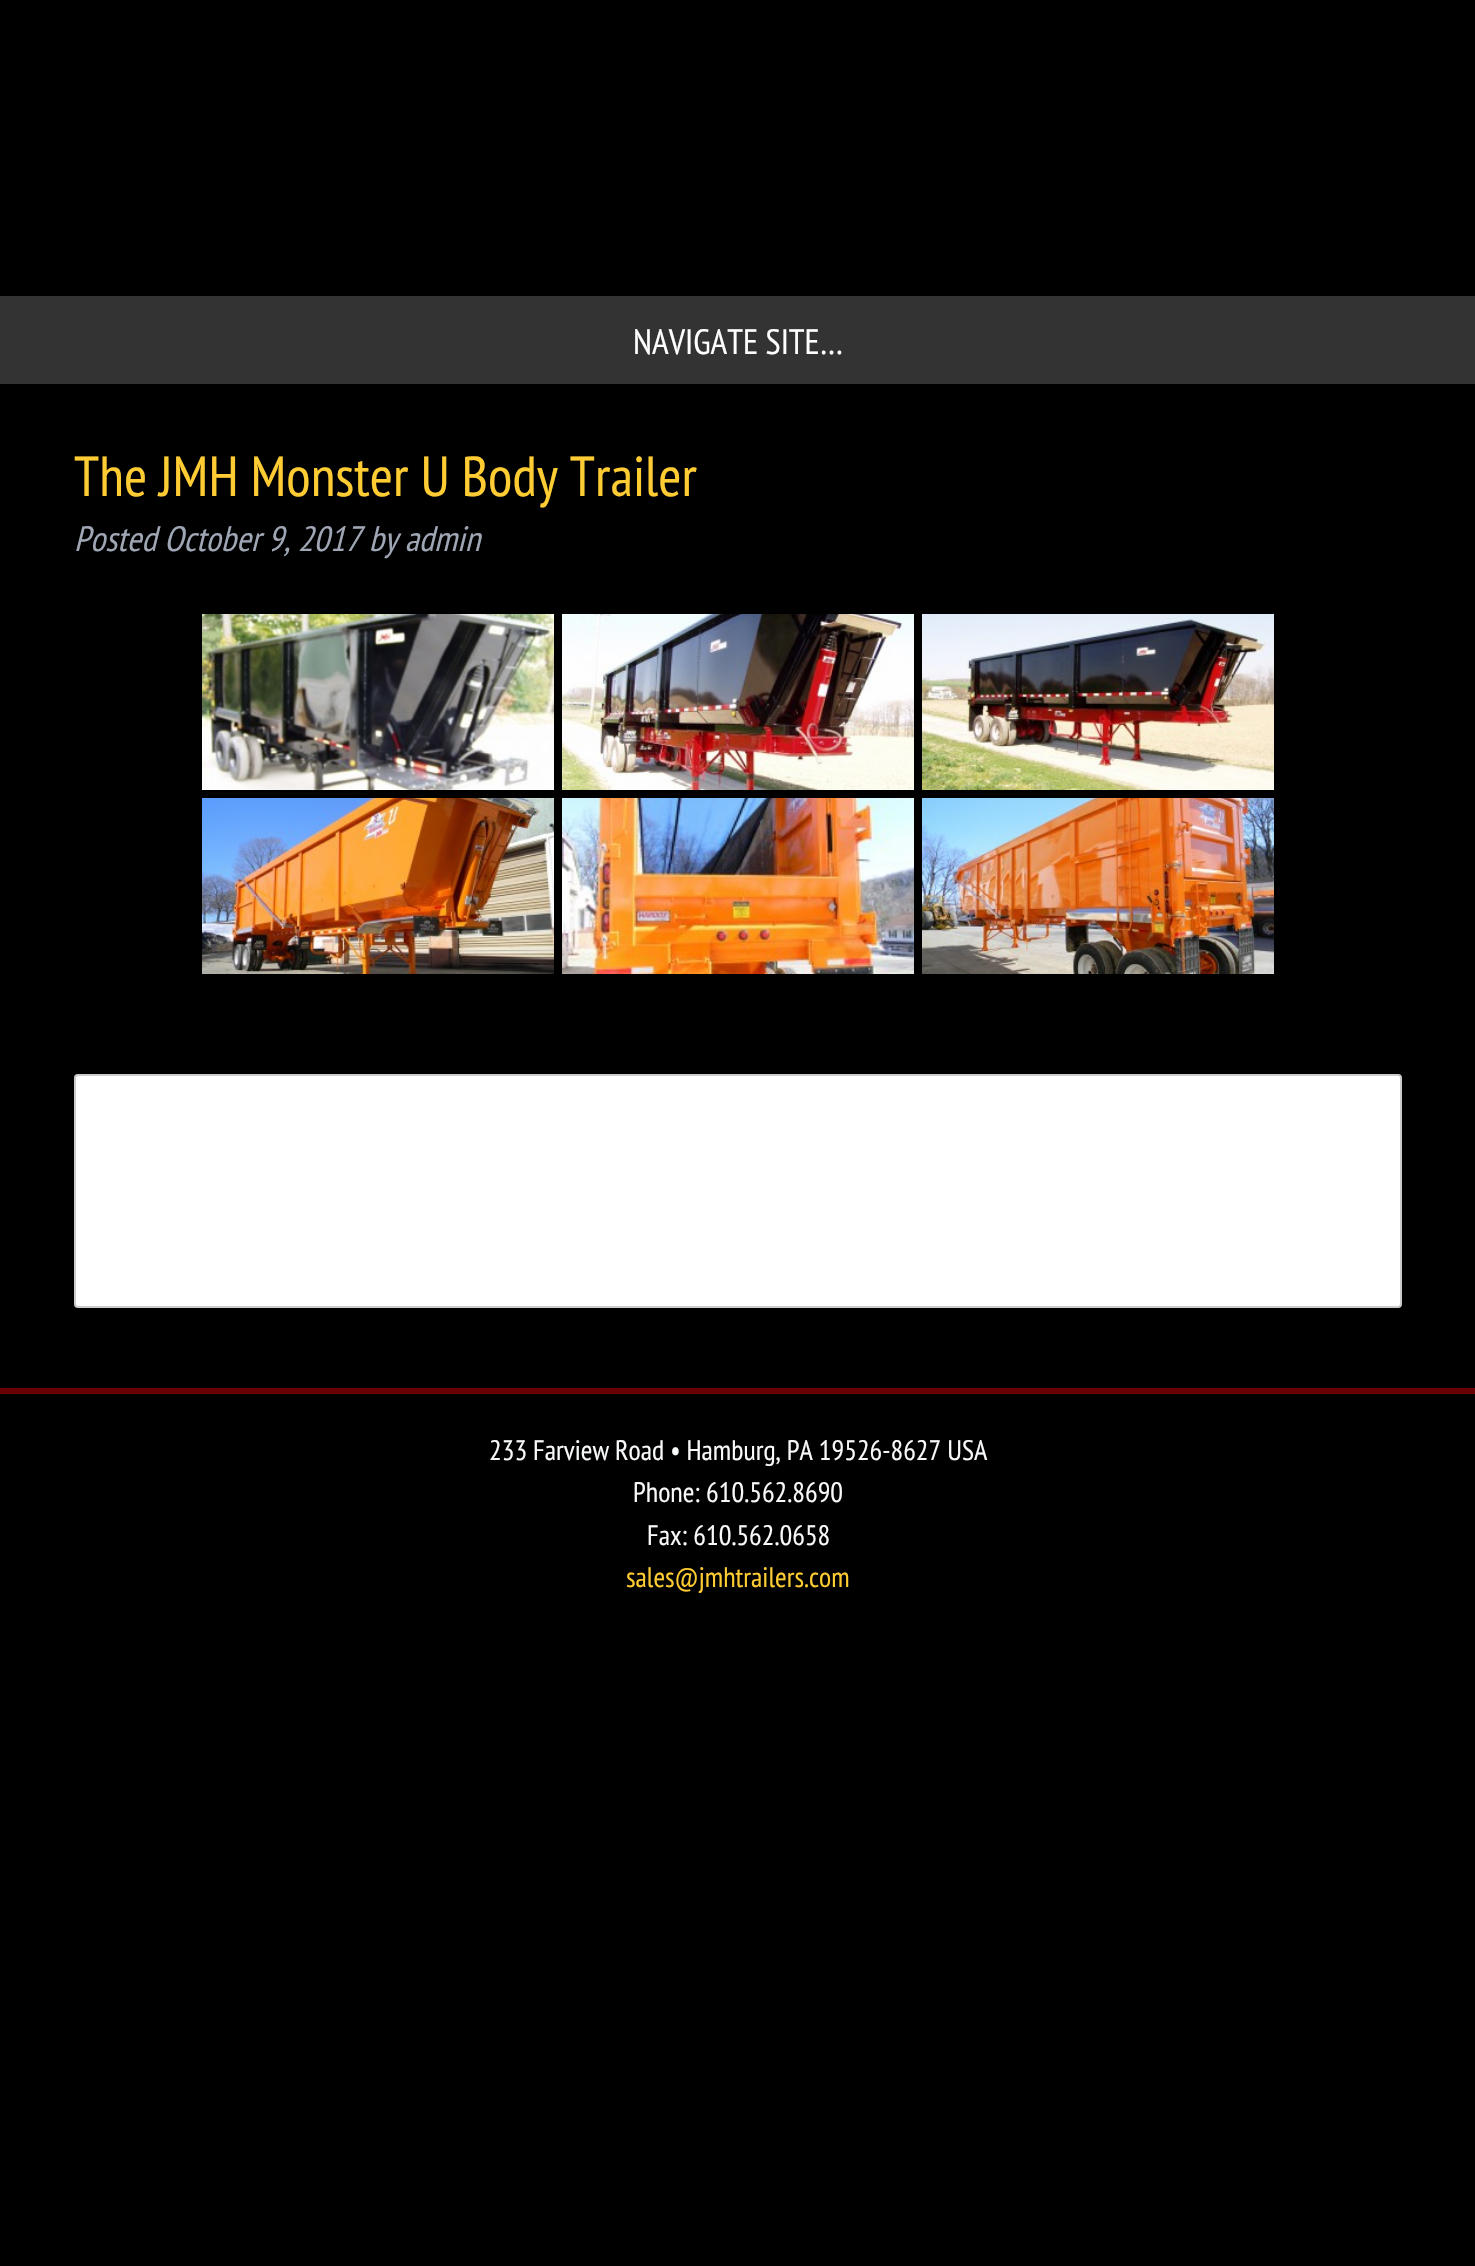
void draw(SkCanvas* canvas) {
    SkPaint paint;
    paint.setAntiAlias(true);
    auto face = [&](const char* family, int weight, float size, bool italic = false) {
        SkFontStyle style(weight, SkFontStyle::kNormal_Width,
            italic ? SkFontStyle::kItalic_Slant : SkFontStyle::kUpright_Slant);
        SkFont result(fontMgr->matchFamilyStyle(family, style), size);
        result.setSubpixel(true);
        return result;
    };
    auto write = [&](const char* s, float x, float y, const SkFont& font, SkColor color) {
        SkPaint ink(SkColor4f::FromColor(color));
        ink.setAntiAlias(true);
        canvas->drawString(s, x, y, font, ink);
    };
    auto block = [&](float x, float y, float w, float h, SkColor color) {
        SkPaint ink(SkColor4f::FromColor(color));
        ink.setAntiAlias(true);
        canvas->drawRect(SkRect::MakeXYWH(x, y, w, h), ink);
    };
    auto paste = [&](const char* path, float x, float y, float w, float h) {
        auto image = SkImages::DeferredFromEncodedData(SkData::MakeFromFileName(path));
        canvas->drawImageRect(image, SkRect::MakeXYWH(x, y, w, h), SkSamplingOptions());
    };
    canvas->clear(SK_ColorBLACK);
    block(0, 296, 1475, 88, SkColorSetRGB(51, 51, 51));
    auto kFont1 = face("PT Sans Narrow", 400, 35.25f);
    write("NAVIGATE SITE…", 633, 354, kFont1, SK_ColorWHITE);
    auto kFont2 = face("PT Sans Narrow", 400, 56.25f);
    write("The JMH Monster U Body Trailer", 74, 496, kFont2, SkColorSetRGB(255, 204, 51));
    auto kFont3 = face("PT Sans Narrow", 400, 35.25f, true);
    write("Posted October 9, 2017 by admin", 74, 551, kFont3, SkColorSetRGB(159, 166, 180));
    paste("pic1.png", 202, 614, 352, 176);
    paste("pic2.png", 562, 614, 352, 176);
    paste("pic3.png", 922, 614, 352, 176);
    paste("pic4.png", 202, 798, 352, 176);
    paste("pic5.png", 562, 798, 352, 176);
    paste("pic6.png", 922, 798, 352, 176);
    paint.setColor(SK_ColorWHITE);
    canvas->drawRoundRect(SkRect::MakeXYWH(75, 1075, 1326, 232), 3, 3, paint);
    paint.setStyle(SkPaint::kStroke_Style);
    paint.setStrokeWidth(2);
    paint.setColor(SkColorSetRGB(204, 204, 204));
    canvas->drawRoundRect(SkRect::MakeXYWH(75, 1075, 1326, 232), 3, 3, paint);
    block(0, 1388, 1475, 6, SkColorSetRGB(104, 0, 4));
    auto kFont4 = face("PT Sans Narrow", 400, 28.2f);
    write("233 Farview Road • Hamburg, PA 19526-8627 USA", 489, 1460, kFont4, SkColorSetRGB(248, 249, 250));
    write("Phone: 610.562.8690", 633, 1502, kFont4, SkColorSetRGB(248, 249, 250));
    write("Fax: 610.562.0658", 647, 1545, kFont4, SkColorSetRGB(248, 249, 250));
    write("sales@jmhtrailers.com", 626, 1587, kFont4, SkColorSetRGB(255, 204, 51));
}
